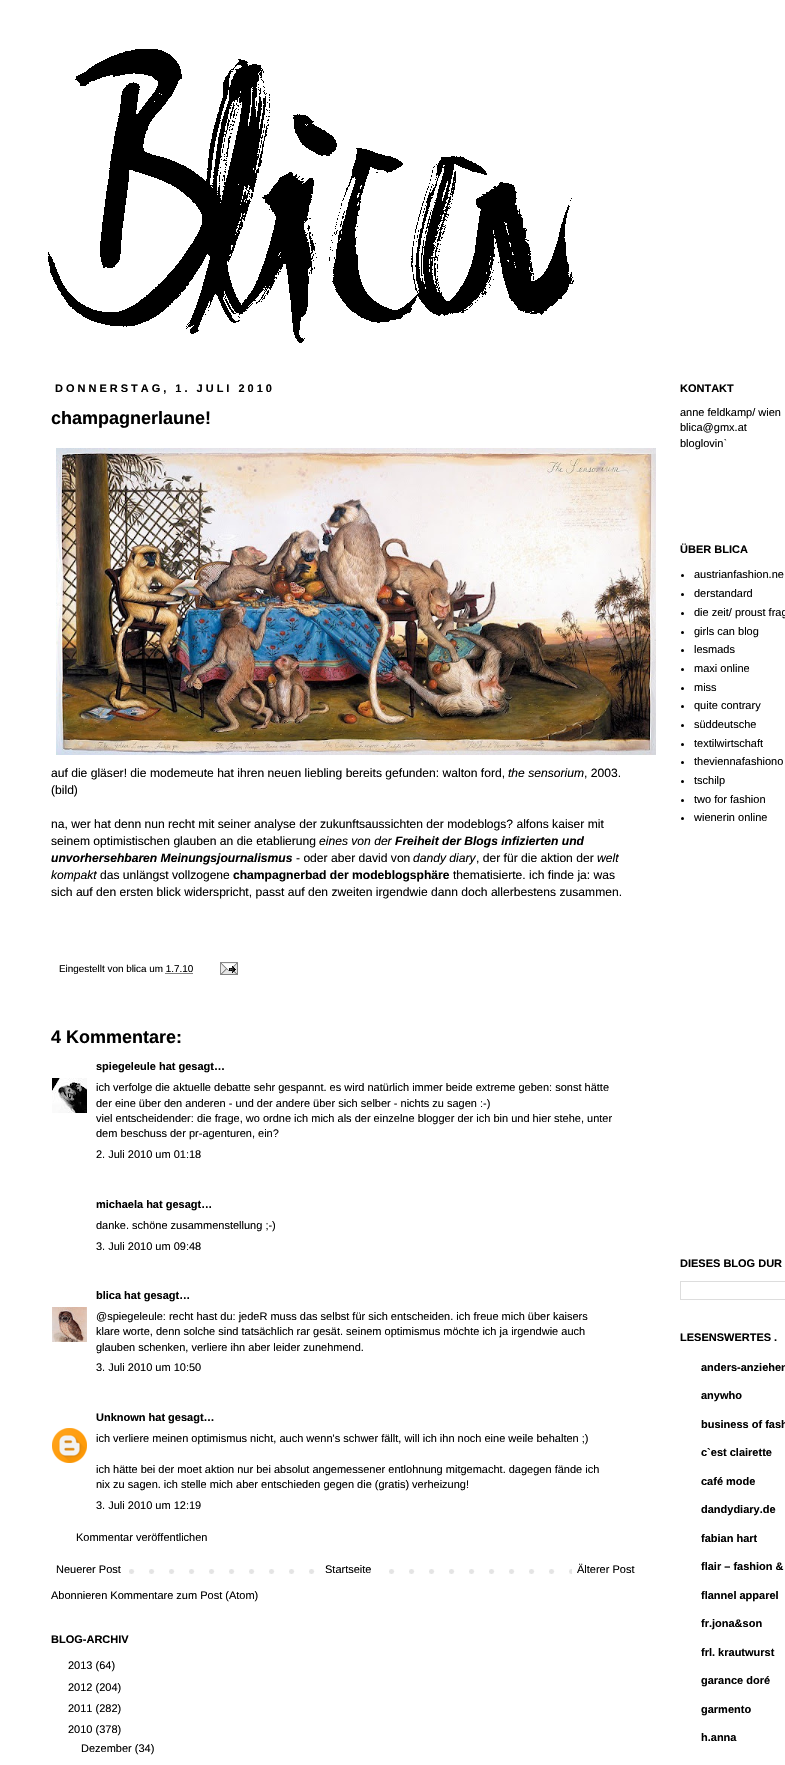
void draw(SkCanvas* canvas) {
    SkPaint paint;
    paint.setAntiAlias(true);
    auto face = [&](const char* family, int weight, float size, bool italic = false) {
        SkFontStyle style(weight, SkFontStyle::kNormal_Width,
            italic ? SkFontStyle::kItalic_Slant : SkFontStyle::kUpright_Slant);
        SkFont result(fontMgr->matchFamilyStyle(family, style), size);
        result.setSubpixel(true);
        return result;
    };
    auto write = [&](const char* s, float x, float y, const SkFont& font, SkColor color) {
        SkPaint ink(SkColor4f::FromColor(color));
        ink.setAntiAlias(true);
        canvas->drawString(s, x, y, font, ink);
    };
    auto writeSpaced = [&](const char* s, float x, float y, const SkFont& font, const SkPaint& ink, float letter, float word) {
        std::vector<SkGlyphID> glyphs(font.countText(s, strlen(s), SkTextEncoding::kUTF8));
        std::vector<float> xs(glyphs.size());
        font.textToGlyphs(s, strlen(s), SkTextEncoding::kUTF8, glyphs);
        font.getXPos(glyphs, xs, x);
        float extra = 0;
        for (size_t i = 0; i < glyphs.size(); i++) {
            xs[i] += extra;
            extra += letter + word * (glyphs[i] == font.unicharToGlyph(' '));
        }
        canvas->drawTextBlob(SkTextBlob::MakeFromPosHGlyphs(glyphs, xs, y, font), 0, 0, ink);
    };
    auto block = [&](float x, float y, float w, float h, SkColor color) {
        SkPaint ink(SkColor4f::FromColor(color));
        ink.setAntiAlias(true);
        canvas->drawRect(SkRect::MakeXYWH(x, y, w, h), ink);
    };
    auto paste = [&](const char* path, float x, float y, float w, float h) {
        auto image = SkImages::DeferredFromEncodedData(SkData::MakeFromFileName(path));
        canvas->drawImageRect(image, SkRect::MakeXYWH(x, y, w, h), SkSamplingOptions());
    };
    canvas->clear(SK_ColorWHITE);
    paste("pic1.png", 48, 49, 526, 294);
    auto kFont1 = face("Liberation Sans", 700, 11);
    paint.setColor(SK_ColorBLACK);
    writeSpaced("DONNERSTAG, 1. JULI 2010", 55, 392, kFont1, paint, 3, 0);
    auto kFont2 = face("Liberation Sans", 700, 18);
    write("champagnerlaune!", 51, 424, kFont2, SK_ColorBLACK);
    paste("pic2.png", 56, 448, 600, 307);
    auto kFont3 = face("Liberation Sans", 400, 12.1f);
    write("auf die gläser! die modemeute hat ihren neuen liebling bereits gefunden: walton ford,", 51, 777, kFont3, SK_ColorBLACK);
    auto kFont4 = face("Liberation Sans", 400, 12.1f, true);
    write("the sensorium", 508, 777, kFont4, SK_ColorBLACK);
    write(", 2003.", 584, 777, kFont3, SK_ColorBLACK);
    write("(bild)", 51, 794, kFont3, SK_ColorBLACK);
    write("na, wer hat denn nun recht mit seiner analyse der zukunftsaussichten der modeblogs? alfons kaiser mit", 51, 828, kFont3, SK_ColorBLACK);
    write("seinem optimistischen glauben an die etablierung", 51, 845, kFont3, SK_ColorBLACK);
    write("eines von der", 319, 845, kFont4, SK_ColorBLACK);
    auto kFont5 = face("Liberation Sans", 700, 12.1f, true);
    write("Freiheit der Blogs infizierten und", 395, 845, kFont5, SK_ColorBLACK);
    write("unvorhersehbaren Meinungsjournalismus", 51, 862, kFont5, SK_ColorBLACK);
    write("- oder aber david von", 296, 862, kFont3, SK_ColorBLACK);
    write("dandy diary", 413, 862, kFont4, SK_ColorBLACK);
    write(", der für die aktion der", 476, 862, kFont3, SK_ColorBLACK);
    write("welt", 597, 862, kFont4, SK_ColorBLACK);
    write("kompakt", 51, 879, kFont4, SK_ColorBLACK);
    write("das unlängst vollzogene", 100, 879, kFont3, SK_ColorBLACK);
    auto kFont6 = face("Liberation Sans", 700, 12.1f);
    write("champagnerbad der modeblogsphäre", 233, 879, kFont6, SK_ColorBLACK);
    write("thematisierte. ich finde ja: was", 453, 879, kFont3, SK_ColorBLACK);
    write("sich auf den ersten blick widerspricht, passt auf den zweiten irgendwie dann doch allerbestens zusammen.", 51, 896, kFont3, SK_ColorBLACK);
    auto kFont7 = face("Liberation Sans", 400, 9.9f);
    write("Eingestellt von blica um 1.7.10", 59, 972, kFont7, SK_ColorBLACK);
    paste("pic3.png", 220, 962, 18, 13);
    paint.setStyle(SkPaint::kStroke_Style);
    paint.setStrokeWidth(1);
    paint.setPathEffect(SkDashPathEffect::Make({{1, 1}}, 0));
    canvas->drawPath(SkPathBuilder().moveTo(165.5f, 973.5f).lineTo(193, 973.5f).detach(), paint);
    paint.setPathEffect(nullptr);
    write("4 Kommentare:", 51, 1043, kFont2, SK_ColorBLACK);
    write("spiegeleule hat gesagt…", 96, 1070, kFont1, SK_ColorBLACK);
    paste("pic4.png", 52, 1078, 35, 35);
    auto kFont8 = face("Liberation Sans", 400, 11);
    write("ich verfolge die aktuelle debatte sehr gespannt. es wird natürlich immer beide extreme geben: sonst hätte", 96, 1091, kFont8, SK_ColorBLACK);
    write("der eine über den anderen - und der andere über sich selber - nichts zu sagen :-)", 96, 1107, kFont8, SK_ColorBLACK);
    write("viel entscheidender: die frage, wo ordne ich mich als der einzelne blogger der ich bin und hier stehe, unter", 96, 1122, kFont8, SK_ColorBLACK);
    write("dem beschuss der pr-agenturen, ein?", 96, 1137, kFont8, SK_ColorBLACK);
    write("2. Juli 2010 um 01:18", 96, 1158, kFont8, SK_ColorBLACK);
    write("michaela hat gesagt…", 96, 1208, kFont1, SK_ColorBLACK);
    write("danke. schöne zusammenstellung ;-)", 96, 1229, kFont8, SK_ColorBLACK);
    write("3. Juli 2010 um 09:48", 96, 1250, kFont8, SK_ColorBLACK);
    write("blica hat gesagt…", 96, 1299, kFont1, SK_ColorBLACK);
    paste("pic5.png", 52, 1307, 35, 35);
    write("@spiegeleule: recht hast du: jedeR muss das selbst für sich entscheiden. ich freue mich über kaisers", 96, 1320, kFont8, SK_ColorBLACK);
    write("klare worte, denn solche sind tatsächlich rar gesät. seinem optimismus möchte ich ja irgendwie auch", 96, 1335, kFont8, SK_ColorBLACK);
    write("glauben schenken, verliere ihn aber leider zunehmend.", 96, 1351, kFont8, SK_ColorBLACK);
    write("3. Juli 2010 um 10:50", 96, 1371, kFont8, SK_ColorBLACK);
    write("Unknown hat gesagt…", 96, 1421, kFont1, SK_ColorBLACK);
    paste("pic6.png", 52, 1428, 35, 35);
    write("ich verliere meinen optimismus nicht, auch wenn's schwer fällt, will ich ihn noch eine weile behalten ;)", 96, 1442, kFont8, SK_ColorBLACK);
    write("ich hätte bei der moet aktion nur bei absolut angemessener entlohnung mitgemacht. dagegen fände ich", 96, 1473, kFont8, SK_ColorBLACK);
    write("nix zu sagen. ich stelle mich aber entschieden gegen die (gratis) verheizung!", 96, 1488, kFont8, SK_ColorBLACK);
    write("3. Juli 2010 um 12:19", 96, 1509, kFont8, SK_ColorBLACK);
    write("Kommentar veröffentlichen", 76, 1541, kFont8, SK_ColorBLACK);
    paste("pic7.png", 129, 1569, 443, 5);
    write("Neuerer Post", 56, 1573, kFont8, SK_ColorBLACK);
    block(329, 1569, 46, 5, SK_ColorWHITE);
    write("Startseite", 325, 1573, kFont8, SK_ColorBLACK);
    write("Älterer Post", 577, 1573, kFont8, SK_ColorBLACK);
    write("Abonnieren Kommentare zum Post (Atom)", 51, 1599, kFont8, SK_ColorBLACK);
    write("BLOG-ARCHIV", 51, 1643, kFont1, SK_ColorBLACK);
    write("2013 (64)", 68, 1669, kFont8, SK_ColorBLACK);
    write("2012 (204)", 68, 1691, kFont8, SK_ColorBLACK);
    write("2011 (282)", 68, 1712, kFont8, SK_ColorBLACK);
    write("2010 (378)", 68, 1733, kFont8, SK_ColorBLACK);
    write("Dezember (34)", 81, 1752, kFont8, SK_ColorBLACK);
    write("KONTAKT", 680, 392, kFont1, SK_ColorBLACK);
    write("anne feldkamp/ wien", 680, 416, kFont8, SK_ColorBLACK);
    write("blica@gmx.at", 680, 431, kFont8, SK_ColorBLACK);
    write("bloglovin`", 680, 447, kFont8, SK_ColorBLACK);
    write("ÜBER BLICA", 680, 553, kFont1, SK_ColorBLACK);
    paint.setStyle(SkPaint::kFill_Style);
    canvas->drawCircle(682.5f, 575.5f, 1.5f, paint);
    write("austrianfashion.ne", 694, 578, kFont8, SK_ColorBLACK);
    canvas->drawCircle(682.5f, 594.5f, 1.5f, paint);
    write("derstandard", 694, 597, kFont8, SK_ColorBLACK);
    canvas->drawCircle(682.5f, 613.5f, 1.5f, paint);
    write("die zeit/ proust frag", 694, 616, kFont8, SK_ColorBLACK);
    canvas->drawCircle(682.5f, 632.5f, 1.5f, paint);
    write("girls can blog", 694, 635, kFont8, SK_ColorBLACK);
    canvas->drawCircle(682.5f, 650.5f, 1.5f, paint);
    write("lesmads", 694, 653, kFont8, SK_ColorBLACK);
    canvas->drawCircle(682.5f, 669.5f, 1.5f, paint);
    write("maxi online", 694, 672, kFont8, SK_ColorBLACK);
    canvas->drawCircle(682.5f, 688.5f, 1.5f, paint);
    write("miss", 694, 691, kFont8, SK_ColorBLACK);
    canvas->drawCircle(682.5f, 706.5f, 1.5f, paint);
    write("quite contrary", 694, 709, kFont8, SK_ColorBLACK);
    canvas->drawCircle(682.5f, 725.5f, 1.5f, paint);
    write("süddeutsche", 694, 728, kFont8, SK_ColorBLACK);
    canvas->drawCircle(682.5f, 744.5f, 1.5f, paint);
    write("textilwirtschaft", 694, 747, kFont8, SK_ColorBLACK);
    canvas->drawCircle(682.5f, 762.5f, 1.5f, paint);
    write("theviennafashiono", 694, 765, kFont8, SK_ColorBLACK);
    canvas->drawCircle(682.5f, 781.5f, 1.5f, paint);
    write("tschilp", 694, 784, kFont8, SK_ColorBLACK);
    canvas->drawCircle(682.5f, 800.5f, 1.5f, paint);
    write("two for fashion", 694, 803, kFont8, SK_ColorBLACK);
    canvas->drawCircle(682.5f, 818.5f, 1.5f, paint);
    write("wienerin online", 694, 821, kFont8, SK_ColorBLACK);
    write("DIESES BLOG DUR", 680, 1267, kFont1, SK_ColorBLACK);
    paint.setStyle(SkPaint::kStroke_Style);
    paint.setColor(SkColorSetRGB(221, 221, 221));
    canvas->drawRect(SkRect::MakeXYWH(680.5f, 1281.5f, 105, 18), paint);
    write("LESENSWERTES .", 680, 1341, kFont1, SK_ColorBLACK);
    write("anders-anziehen", 701, 1371, kFont1, SK_ColorBLACK);
    write("anywho", 701, 1399, kFont1, SK_ColorBLACK);
    write("business of fash", 701, 1428, kFont1, SK_ColorBLACK);
    write("c`est clairette", 701, 1456, kFont1, SK_ColorBLACK);
    write("café mode", 701, 1485, kFont1, SK_ColorBLACK);
    write("dandydiary.de", 701, 1513, kFont1, SK_ColorBLACK);
    write("fabian hart", 701, 1542, kFont1, SK_ColorBLACK);
    write("flair – fashion &", 701, 1570, kFont1, SK_ColorBLACK);
    write("flannel apparel", 701, 1599, kFont1, SK_ColorBLACK);
    write("fr.jona&son", 701, 1627, kFont1, SK_ColorBLACK);
    write("frl. krautwurst", 701, 1656, kFont1, SK_ColorBLACK);
    write("garance doré", 701, 1684, kFont1, SK_ColorBLACK);
    write("garmento", 701, 1713, kFont1, SK_ColorBLACK);
    write("h.anna", 701, 1741, kFont1, SK_ColorBLACK);
}
